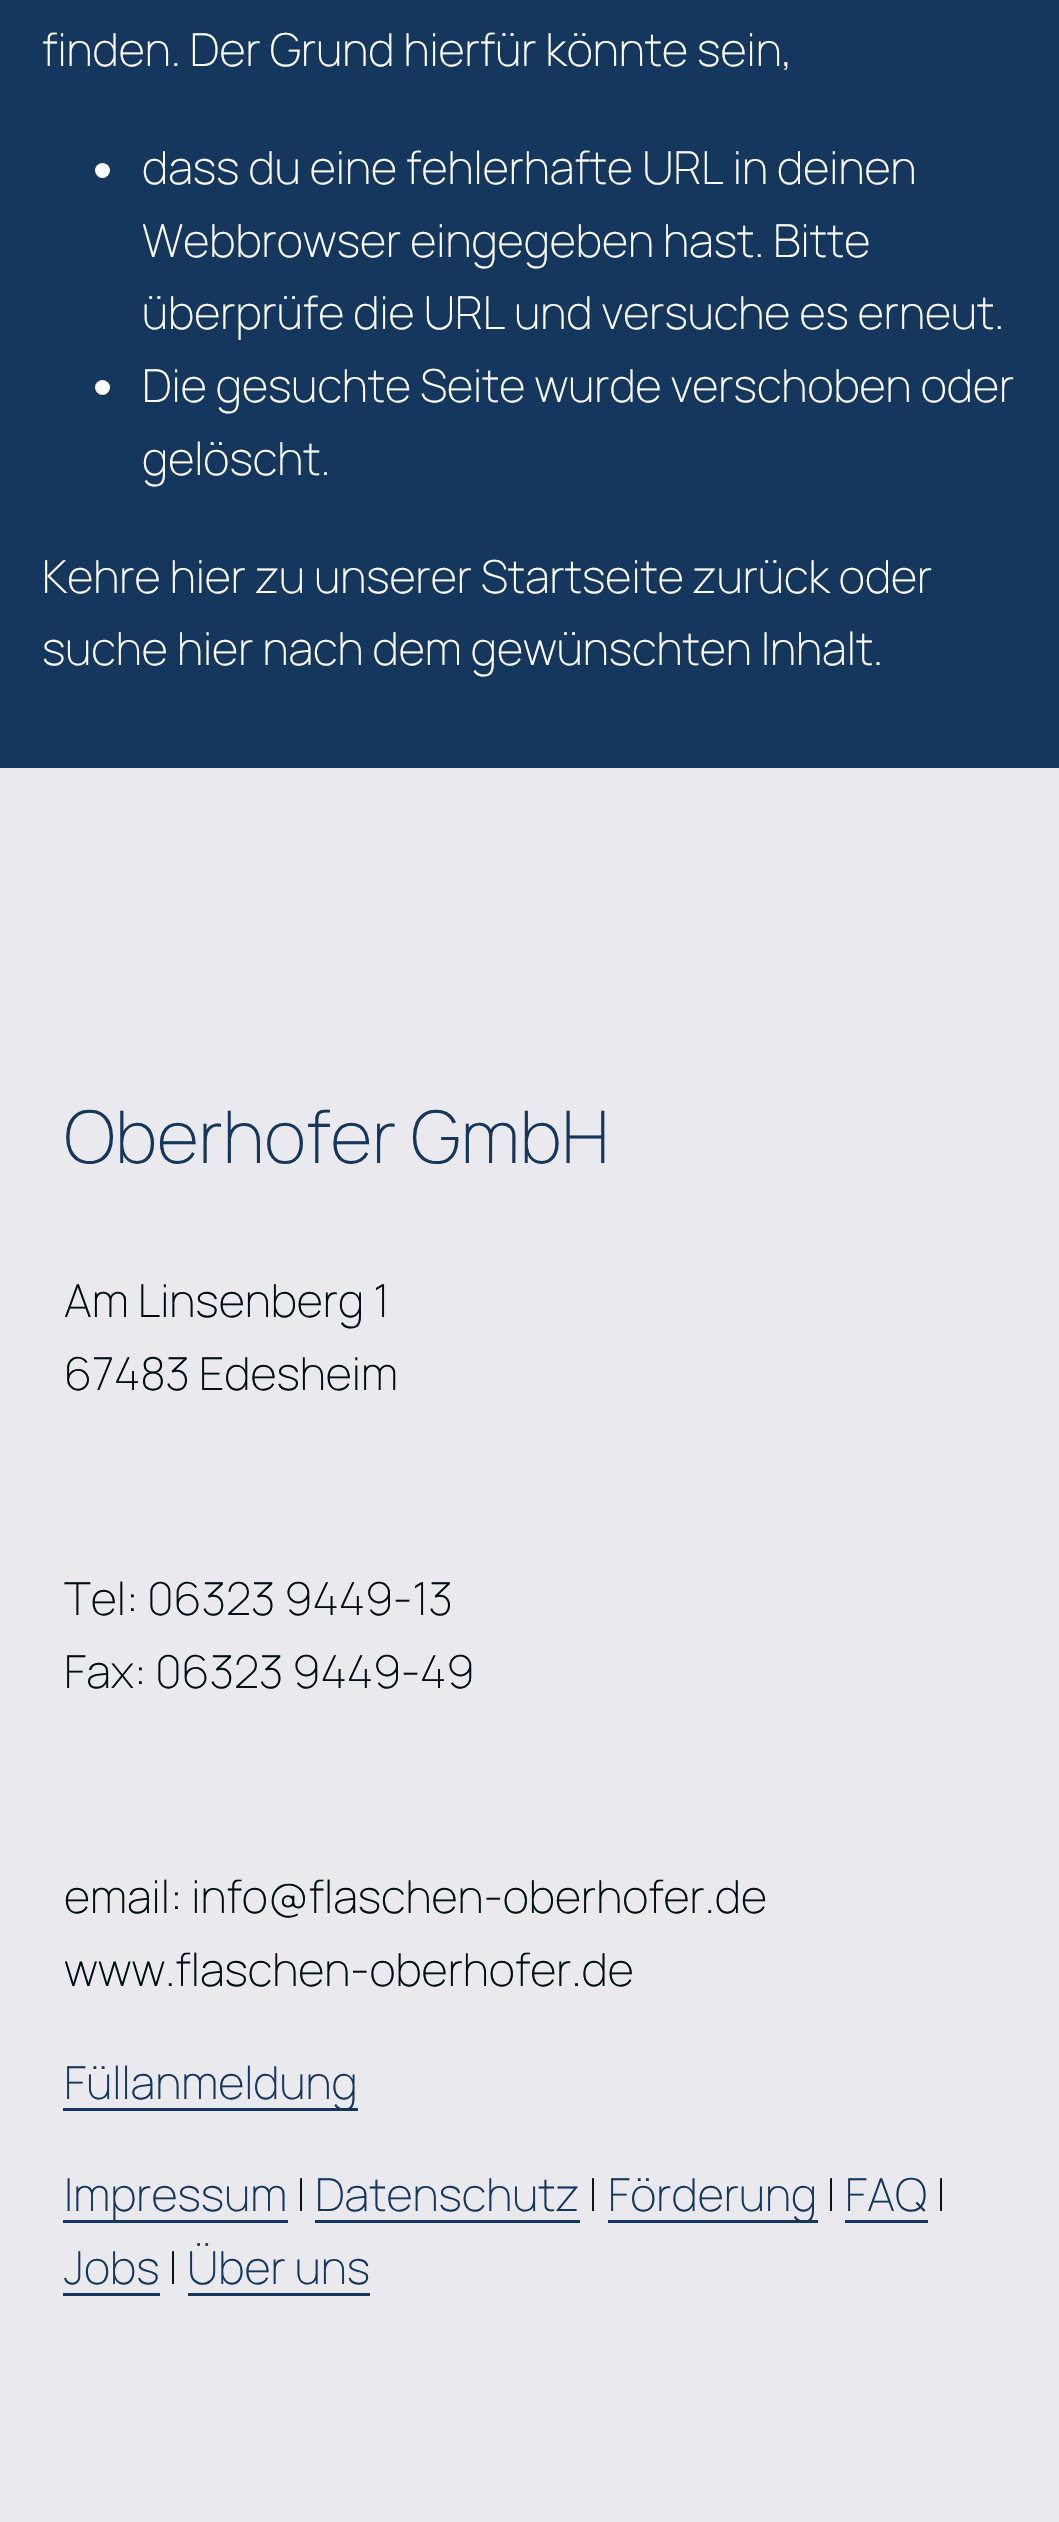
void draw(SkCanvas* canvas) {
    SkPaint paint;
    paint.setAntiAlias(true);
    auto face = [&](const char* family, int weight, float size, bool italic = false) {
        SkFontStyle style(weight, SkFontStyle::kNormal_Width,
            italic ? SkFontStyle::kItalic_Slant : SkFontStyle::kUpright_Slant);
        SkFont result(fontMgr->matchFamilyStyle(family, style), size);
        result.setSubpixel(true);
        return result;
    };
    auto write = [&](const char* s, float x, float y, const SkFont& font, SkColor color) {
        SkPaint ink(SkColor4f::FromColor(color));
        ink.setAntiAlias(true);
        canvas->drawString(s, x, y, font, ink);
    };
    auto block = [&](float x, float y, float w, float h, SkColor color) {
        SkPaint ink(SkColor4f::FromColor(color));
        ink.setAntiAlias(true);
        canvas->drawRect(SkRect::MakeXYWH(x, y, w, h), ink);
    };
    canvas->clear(SkColorSetRGB(21, 54, 93));
    auto kFont1 = face("Manrope", 200, 45.4f);
    write("finden. Der Grund hierfür könnte sein,", 42, 66, kFont1, SK_ColorWHITE);
    paint.setColor(SK_ColorWHITE);
    canvas->drawCircle(102.5f, 170.5f, 7.5f, paint);
    write("dass du eine fehlerhafte URL in deinen", 142, 184, kFont1, SK_ColorWHITE);
    write("Webbrowser eingegeben hast. Bitte", 142, 257, kFont1, SK_ColorWHITE);
    write("überprüfe die URL und versuche es erneut.", 142, 329, kFont1, SK_ColorWHITE);
    canvas->drawCircle(102.5f, 387.5f, 7.5f, paint);
    write("Die gesuchte Seite wurde verschoben oder", 142, 402, kFont1, SK_ColorWHITE);
    write("gelöscht.", 142, 475, kFont1, SK_ColorWHITE);
    write("Kehre hier zu unserer Startseite zurück oder", 42, 593, kFont1, SK_ColorWHITE);
    write("suche hier nach dem gewünschten Inhalt.", 42, 665, kFont1, SK_ColorWHITE);
    block(0, 768, 1059, 1754, SkColorSetRGB(234, 234, 238));
    auto kFont2 = face("Manrope", 200, 72.5f);
    write("Oberhofer GmbH", 64, 1163, kFont2, SkColorSetRGB(21, 54, 93));
    write("Am Linsenberg 1", 64, 1317, kFont1, SkColorSetRGB(0, 14, 21));
    write("67483 Edesheim", 64, 1390, kFont1, SkColorSetRGB(0, 14, 21));
    write("Tel: 06323 9449-13", 64, 1615, kFont1, SkColorSetRGB(0, 14, 21));
    write("Fax: 06323 9449-49", 64, 1688, kFont1, SkColorSetRGB(0, 14, 21));
    write("email: info@flaschen-oberhofer.de", 64, 1913, kFont1, SkColorSetRGB(0, 14, 21));
    write("www.flaschen-oberhofer.de", 64, 1986, kFont1, SkColorSetRGB(0, 14, 21));
    block(63, 2108, 295, 3, SkColorSetRGB(21, 54, 93));
    write("Füllanmeldung", 64, 2099, kFont1, SkColorSetRGB(21, 54, 93));
    block(63, 2220, 225, 3, SkColorSetRGB(21, 54, 93));
    write("Impressum", 64, 2211, kFont1, SkColorSetRGB(21, 54, 93));
    write("|", 296, 2211, kFont1, SkColorSetRGB(0, 14, 21));
    write("Datenschutz", 315, 2211, kFont1, SkColorSetRGB(21, 54, 93));
    block(315, 2220, 265, 3, SkColorSetRGB(21, 54, 93));
    write("|", 588, 2211, kFont1, SkColorSetRGB(0, 14, 21));
    block(608, 2220, 210, 3, SkColorSetRGB(21, 54, 93));
    write("Förderung", 608, 2211, kFont1, SkColorSetRGB(21, 54, 93));
    write("|", 826, 2211, kFont1, SkColorSetRGB(0, 14, 21));
    write("FAQ", 845, 2211, kFont1, SkColorSetRGB(21, 54, 93));
    block(845, 2220, 83, 3, SkColorSetRGB(21, 54, 93));
    write("|", 936, 2211, kFont1, SkColorSetRGB(0, 14, 21));
    write("Jobs", 64, 2284, kFont1, SkColorSetRGB(21, 54, 93));
    block(63, 2293, 97, 3, SkColorSetRGB(21, 54, 93));
    write("|", 168, 2284, kFont1, SkColorSetRGB(0, 14, 21));
    write("Über uns", 187, 2284, kFont1, SkColorSetRGB(21, 54, 93));
    block(188, 2293, 182, 3, SkColorSetRGB(21, 54, 93));
}
